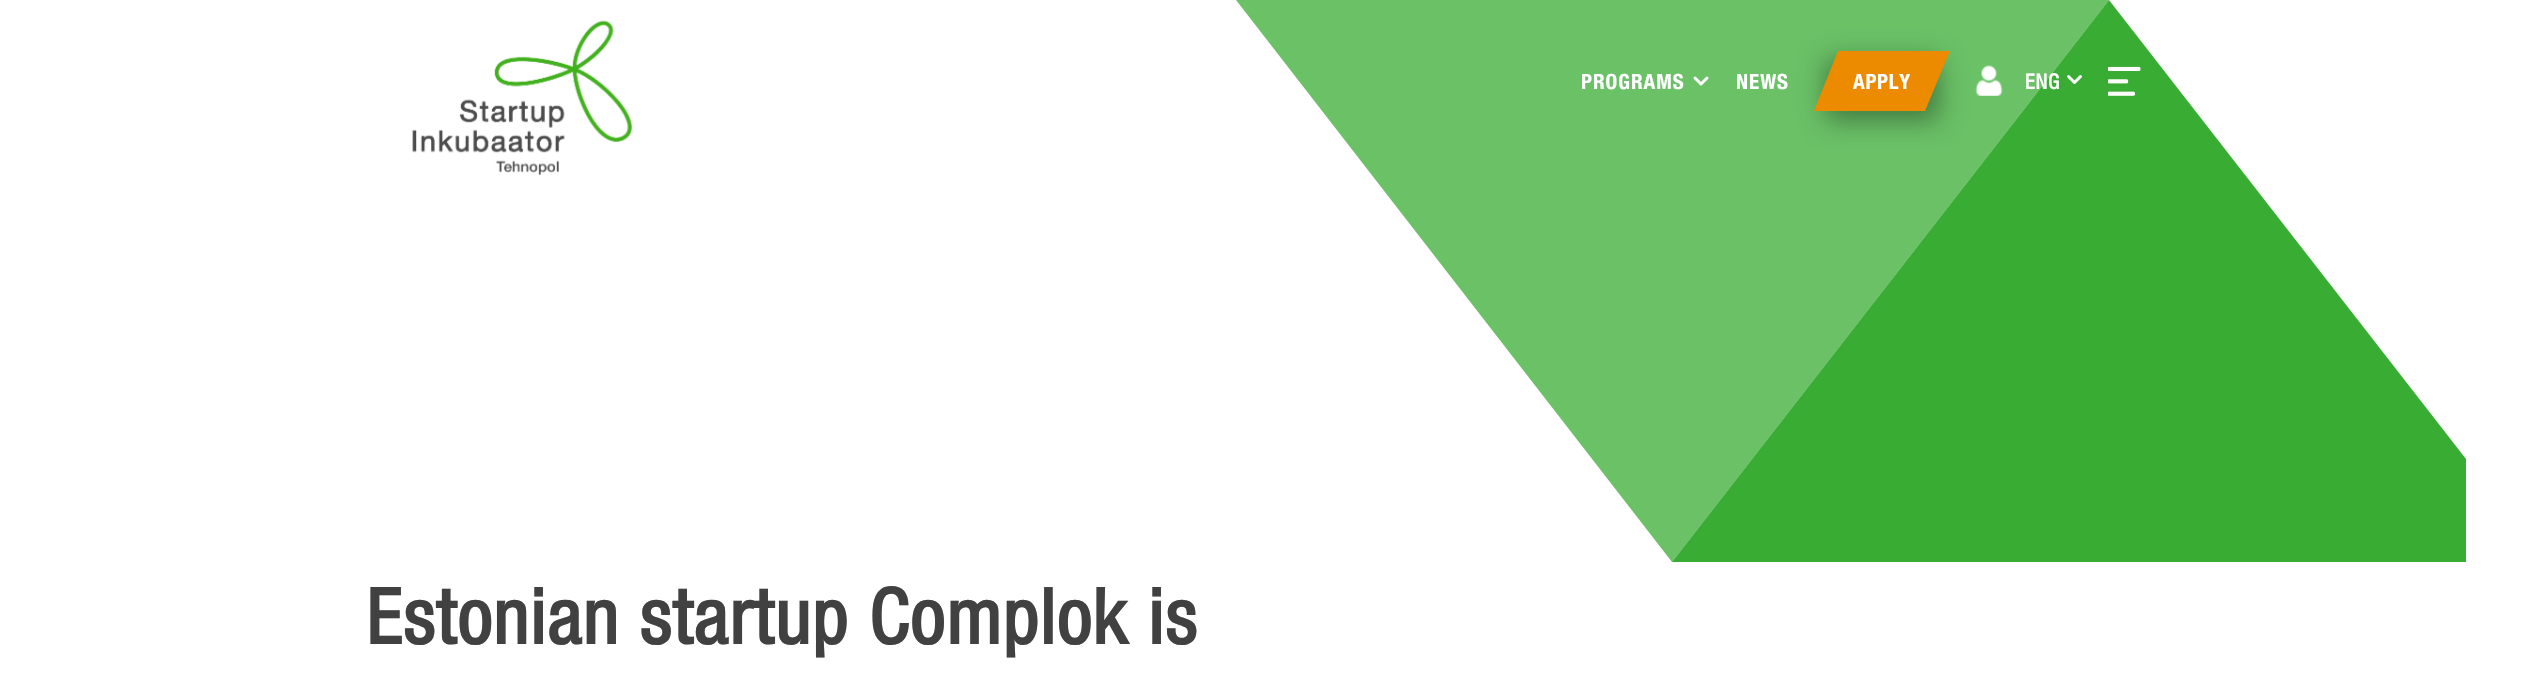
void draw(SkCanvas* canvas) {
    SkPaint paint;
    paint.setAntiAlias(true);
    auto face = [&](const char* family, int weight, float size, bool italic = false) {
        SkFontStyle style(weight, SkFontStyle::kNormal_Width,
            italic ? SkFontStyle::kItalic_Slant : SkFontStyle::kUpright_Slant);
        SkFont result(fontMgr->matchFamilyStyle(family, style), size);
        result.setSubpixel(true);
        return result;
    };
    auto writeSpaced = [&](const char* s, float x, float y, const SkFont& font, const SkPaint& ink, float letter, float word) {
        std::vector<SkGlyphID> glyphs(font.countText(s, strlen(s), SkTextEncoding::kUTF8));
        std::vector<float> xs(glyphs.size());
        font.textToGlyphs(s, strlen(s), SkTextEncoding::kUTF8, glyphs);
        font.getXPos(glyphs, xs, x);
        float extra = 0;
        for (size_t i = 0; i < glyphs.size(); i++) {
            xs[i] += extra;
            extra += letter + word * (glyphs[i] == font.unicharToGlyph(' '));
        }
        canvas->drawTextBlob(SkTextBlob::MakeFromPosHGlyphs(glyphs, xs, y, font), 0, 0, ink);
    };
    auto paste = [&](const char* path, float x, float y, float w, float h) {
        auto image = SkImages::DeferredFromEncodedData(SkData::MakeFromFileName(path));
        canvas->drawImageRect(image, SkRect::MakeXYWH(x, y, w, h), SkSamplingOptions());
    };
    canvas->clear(SK_ColorWHITE);
    paint.setColor(SkColorSetRGB(106, 193, 102));
    canvas->drawPath(SkPathBuilder().moveTo(1236, 0).lineTo(1672, 562).lineTo(2109, 0).close().detach(), paint);
    canvas->save();
    canvas->clipRect(SkRect::MakeXYWH(1236, 0, 1230, 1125));
    paint.setColor(SkColorSetARGB(204, 7, 151, 0));
    canvas->drawPath(SkPathBuilder().moveTo(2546, 562).lineTo(2109, 0).lineTo(1672, 562).close().detach(), paint);
    canvas->restore();
    paste("pic1.png", 412, 20, 221, 156);
    auto kFont1 = face("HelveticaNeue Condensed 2", 700, 21);
    paint.setColor(SK_ColorWHITE);
    writeSpaced("PROGRAMS", 1581, 89, kFont1, paint, 1, 0);
    paint.setStyle(SkPaint::kStroke_Style);
    paint.setStrokeWidth(3);
    paint.setStrokeCap(SkPaint::kRound_Cap);
    paint.setStrokeJoin(SkPaint::kRound_Join);
    canvas->drawPath(SkPathBuilder().moveTo(1695, 78).lineTo(1701, 84).lineTo(1707, 78).detach(), paint);
    paint.setStyle(SkPaint::kFill_Style);
    writeSpaced("NEWS", 1736, 89, kFont1, paint, 1, 0);
    paint.setColor(SkColorSetARGB(97, 0, 0, 0));
    paint.setMaskFilter(SkMaskFilter::MakeBlur(kNormal_SkBlurStyle, 13.5f));
    canvas->drawRect(SkRect::MakeXYWH(1826, 60, 112, 60), paint);
    paint.setMaskFilter(nullptr);
    paint.setColor(SkColorSetRGB(237, 139, 0));
    canvas->drawPath(SkPathBuilder().moveTo(1838, 51).lineTo(1950, 51).lineTo(1925, 111).lineTo(1814, 111).close().detach(), paint);
    paint.setColor(SK_ColorWHITE);
    writeSpaced("APPLY", 1853, 89, kFont1, paint, 0.75f, 0);
    paste("pic2.png", 1975, 65, 28, 31);
    auto kFont2 = face("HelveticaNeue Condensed", 700, 21);
    writeSpaced("ENG", 2025, 89, kFont2, paint, 0.75f, 0);
    paint.setStyle(SkPaint::kStroke_Style);
    canvas->drawPath(SkPathBuilder().moveTo(2068.5f, 76.5f).lineTo(2074.5f, 82.5f).lineTo(2080.5f, 76.5f).detach(), paint);
    paste("pic3.png", 2108, 66, 33, 30);
    auto kFont3 = face("HelveticaNeue Condensed", 700, 76.75f);
    paint.setStyle(SkPaint::kFill_Style);
    paint.setColor(SkColorSetRGB(65, 65, 65));
    writeSpaced("Estonian startup Complok is", 366, 644, kFont3, paint, 1.5f, 0);
}
